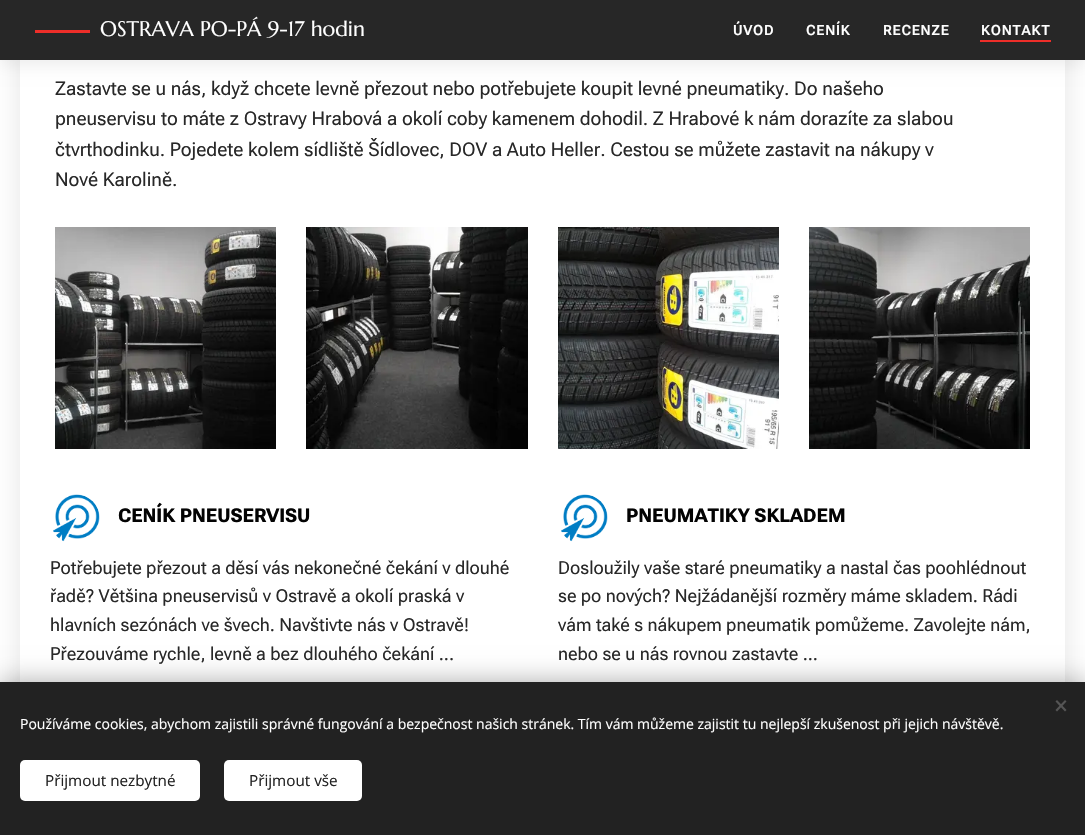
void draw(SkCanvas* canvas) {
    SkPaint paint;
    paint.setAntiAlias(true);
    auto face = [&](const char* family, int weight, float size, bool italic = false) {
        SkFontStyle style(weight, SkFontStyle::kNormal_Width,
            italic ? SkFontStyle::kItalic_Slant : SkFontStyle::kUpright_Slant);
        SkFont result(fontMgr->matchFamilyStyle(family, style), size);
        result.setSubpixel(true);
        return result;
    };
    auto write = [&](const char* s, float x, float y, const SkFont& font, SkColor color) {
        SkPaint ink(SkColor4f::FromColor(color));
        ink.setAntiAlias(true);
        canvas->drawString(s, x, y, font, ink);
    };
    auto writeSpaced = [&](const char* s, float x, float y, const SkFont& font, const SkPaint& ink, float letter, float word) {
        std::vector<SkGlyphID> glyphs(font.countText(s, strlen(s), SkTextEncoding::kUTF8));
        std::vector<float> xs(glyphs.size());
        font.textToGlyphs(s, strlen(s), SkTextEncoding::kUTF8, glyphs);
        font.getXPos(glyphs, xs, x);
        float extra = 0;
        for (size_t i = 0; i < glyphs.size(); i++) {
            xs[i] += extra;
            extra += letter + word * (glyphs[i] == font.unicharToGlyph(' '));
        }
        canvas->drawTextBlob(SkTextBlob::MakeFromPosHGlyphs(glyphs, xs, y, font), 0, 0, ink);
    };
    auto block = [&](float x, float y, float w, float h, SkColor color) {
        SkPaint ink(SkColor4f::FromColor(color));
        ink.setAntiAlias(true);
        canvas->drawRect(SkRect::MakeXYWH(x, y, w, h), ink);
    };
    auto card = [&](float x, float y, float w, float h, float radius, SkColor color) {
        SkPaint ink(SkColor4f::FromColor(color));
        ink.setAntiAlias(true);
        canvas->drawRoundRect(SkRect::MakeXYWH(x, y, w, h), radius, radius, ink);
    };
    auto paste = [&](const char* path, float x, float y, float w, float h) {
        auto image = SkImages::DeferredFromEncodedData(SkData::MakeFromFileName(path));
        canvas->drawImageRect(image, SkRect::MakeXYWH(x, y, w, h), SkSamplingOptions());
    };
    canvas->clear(SK_ColorWHITE);
    paint.setColor(SkColorSetARGB(18, 0, 0, 0));
    paint.setMaskFilter(SkMaskFilter::MakeBlur(kNormal_SkBlurStyle, 7.5f));
    canvas->drawRect(SkRect::MakeXYWH(0, 5, 1085, 60), paint);
    paint.setMaskFilter(nullptr);
    canvas->save();
    canvas->clipPath(SkPathBuilder(SkPathFillType::kEvenOdd).moveTo(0, 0).lineTo(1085, 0).lineTo(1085, 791).lineTo(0, 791).close().moveTo(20, -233).lineTo(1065, -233).lineTo(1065, 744).lineTo(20, 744).close().detach(), true);
    paint.setColor(SkColorSetARGB(26, 0, 0, 0));
    paint.setMaskFilter(SkMaskFilter::MakeBlur(kNormal_SkBlurStyle, 12.5f));
    canvas->drawRect(SkRect::MakeXYWH(20, -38, 1045, 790), paint);
    paint.setMaskFilter(nullptr);
    canvas->restore();
    block(0, 0, 1085, 60, SkColorSetRGB(39, 39, 39));
    block(35, 30, 55, 3, SkColorSetRGB(237, 46, 41));
    auto kFont1 = face("Marcellus", 400, 21);
    write("OSTRAVA PO-PÁ 9-17 hodin", 100, 36, kFont1, SK_ColorWHITE);
    auto kFont2 = face("Roboto Flex", 600, 14);
    paint.setColor(SK_ColorWHITE);
    writeSpaced("ÚVOD", 733, 35, kFont2, paint, 0.75f, 0);
    writeSpaced("CENÍK", 806, 35, kFont2, paint, 0.75f, 0);
    writeSpaced("RECENZE", 883, 35, kFont2, paint, 0.75f, 0);
    writeSpaced("KONTAKT", 981, 35, kFont2, paint, 0.75f, 0);
    block(980, 40, 71, 2, SkColorSetRGB(237, 46, 41));
    auto kFont3 = face("Roboto Flex", 400, 19);
    write("Zastavte se u nás, když chcete levně přezout nebo potřebujete koupit levné pneumatiky. Do našeho", 55, 95, kFont3, SkColorSetRGB(40, 40, 40));
    write("pneuservisu to máte z Ostravy Hrabová a okolí coby kamenem dohodil. Z Hrabové k nám dorazíte za slabou", 55, 125, kFont3, SkColorSetRGB(40, 40, 40));
    write("čtvrthodinku. Pojedete kolem sídliště Šídlovec, DOV a Auto Heller. Cestou se můžete zastavit na nákupy v", 55, 156, kFont3, SkColorSetRGB(40, 40, 40));
    write("Nové Karolině.", 55, 186, kFont3, SkColorSetRGB(40, 40, 40));
    paste("pic1.png", 55, 227, 221, 222);
    paste("pic2.png", 306, 227, 222, 222);
    paste("pic3.png", 558, 227, 221, 222);
    paste("pic4.png", 809, 227, 221, 222);
    paste("pic5.png", 53, 494, 47, 48);
    auto kFont4 = face("Roboto Flex", 800, 19);
    write("CENÍK PNEUSERVISU", 118, 522, kFont4, SkColorSetRGB(3, 3, 3));
    auto kFont5 = face("Roboto Flex", 400, 18);
    write("Potřebujete přezout a děsí vás nekonečné čekání v dlouhé", 50, 574, kFont5, SkColorSetRGB(40, 40, 40));
    write("řadě? Většina pneuservisů v Ostravě a okolí praská v", 50, 602, kFont5, SkColorSetRGB(40, 40, 40));
    write("hlavních sezónách ve švech. Navštivte nás v Ostravě!", 50, 631, kFont5, SkColorSetRGB(40, 40, 40));
    write("Přezouváme rychle, levně a bez dlouhého čekání ...", 50, 660, kFont5, SkColorSetRGB(40, 40, 40));
    paste("pic5.png", 561, 494, 47, 48);
    write("PNEUMATIKY SKLADEM", 626, 522, kFont4, SkColorSetRGB(3, 3, 3));
    write("Dosloužily vaše staré pneumatiky a nastal čas poohlédnout", 558, 574, kFont5, SkColorSetRGB(40, 40, 40));
    write("se po nových? Nejžádanější rozměry máme skladem. Rádi", 558, 602, kFont5, SkColorSetRGB(40, 40, 40));
    write("vám také s nákupem pneumatik pomůžeme. Zavolejte nám,", 558, 631, kFont5, SkColorSetRGB(40, 40, 40));
    write("nebo se u nás rovnou zastavte ...", 558, 660, kFont5, SkColorSetRGB(40, 40, 40));
    paint.setColor(SkColorSetARGB(84, 0, 0, 0));
    paint.setMaskFilter(SkMaskFilter::MakeBlur(kNormal_SkBlurStyle, 12.5f));
    canvas->drawRect(SkRect::MakeXYWH(0, 682, 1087, 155), paint);
    paint.setMaskFilter(nullptr);
    block(0, 682, 1085, 153, SkColorSetRGB(34, 34, 34));
    paint.setColor(SkColorSetRGB(85, 85, 85));
    canvas->drawPath(SkPathBuilder().moveTo(1055.5f, 710).lineTo(1065, 700).lineTo(1066.5f, 701.5f).lineTo(1057, 711.5f).close().detach(), paint);
    canvas->drawPath(SkPathBuilder().moveTo(1057, 700).lineTo(1066.5f, 710).lineTo(1065, 711.5f).lineTo(1055.5f, 701.5f).close().detach(), paint);
    auto kFont6 = face("Open Sans", 400, 14);
    write("Používáme cookies, abychom zajistili správné fungování a bezpečnost našich stránek. Tím vám můžeme zajistit tu nejlepší zkušenost při jejich návštěvě.", 20, 729, kFont6, SK_ColorWHITE);
    card(20, 760, 180, 41, 5, SK_ColorWHITE);
    auto kFont7 = face("Open Sans", 400, 15.25f);
    write("Přijmout nezbytné", 45, 786, kFont7, SkColorSetRGB(34, 34, 34));
    card(224, 760, 138, 41, 5, SK_ColorWHITE);
    write("Přijmout vše", 249, 786, kFont7, SkColorSetRGB(34, 34, 34));
}
